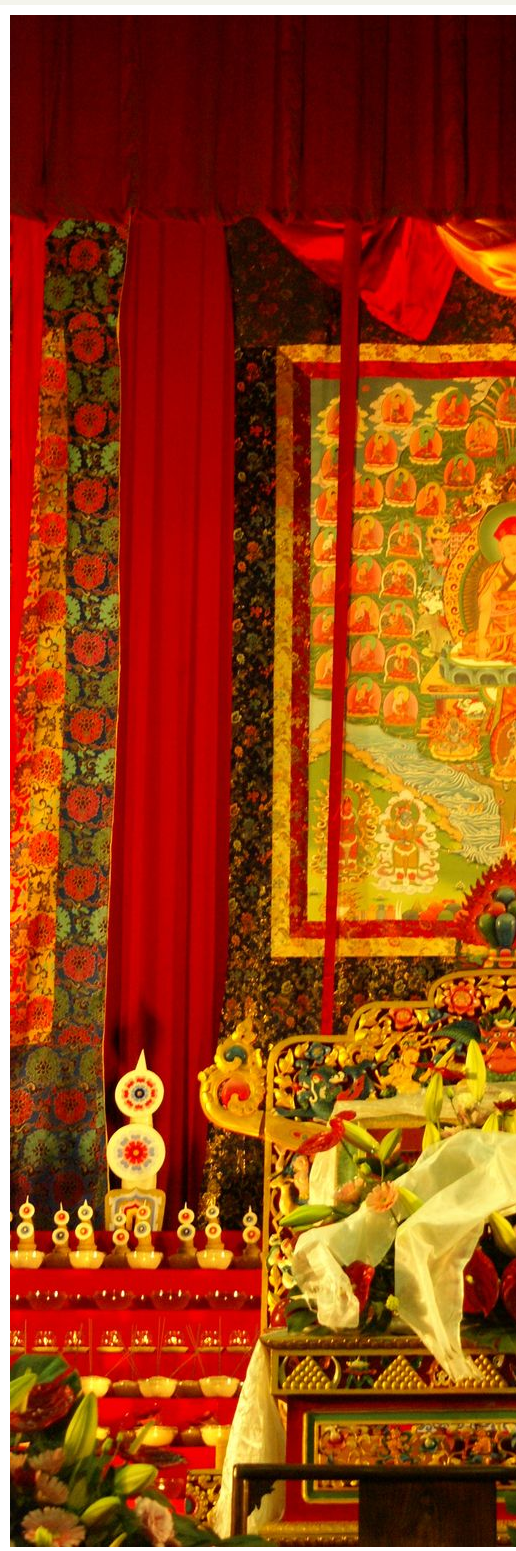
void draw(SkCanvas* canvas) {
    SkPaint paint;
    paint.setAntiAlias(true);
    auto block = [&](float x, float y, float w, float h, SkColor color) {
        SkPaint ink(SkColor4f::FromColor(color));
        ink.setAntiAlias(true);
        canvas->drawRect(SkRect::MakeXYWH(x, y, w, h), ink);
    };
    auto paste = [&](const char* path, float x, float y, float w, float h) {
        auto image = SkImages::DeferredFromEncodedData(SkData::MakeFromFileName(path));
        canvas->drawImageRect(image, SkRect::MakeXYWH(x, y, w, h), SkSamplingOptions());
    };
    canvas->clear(SkColorSetRGB(244, 244, 236));
    block(0, 5, 516, 1546, SK_ColorWHITE);
    paste("pic1.png", 10, 15, 506, 1532);
}
